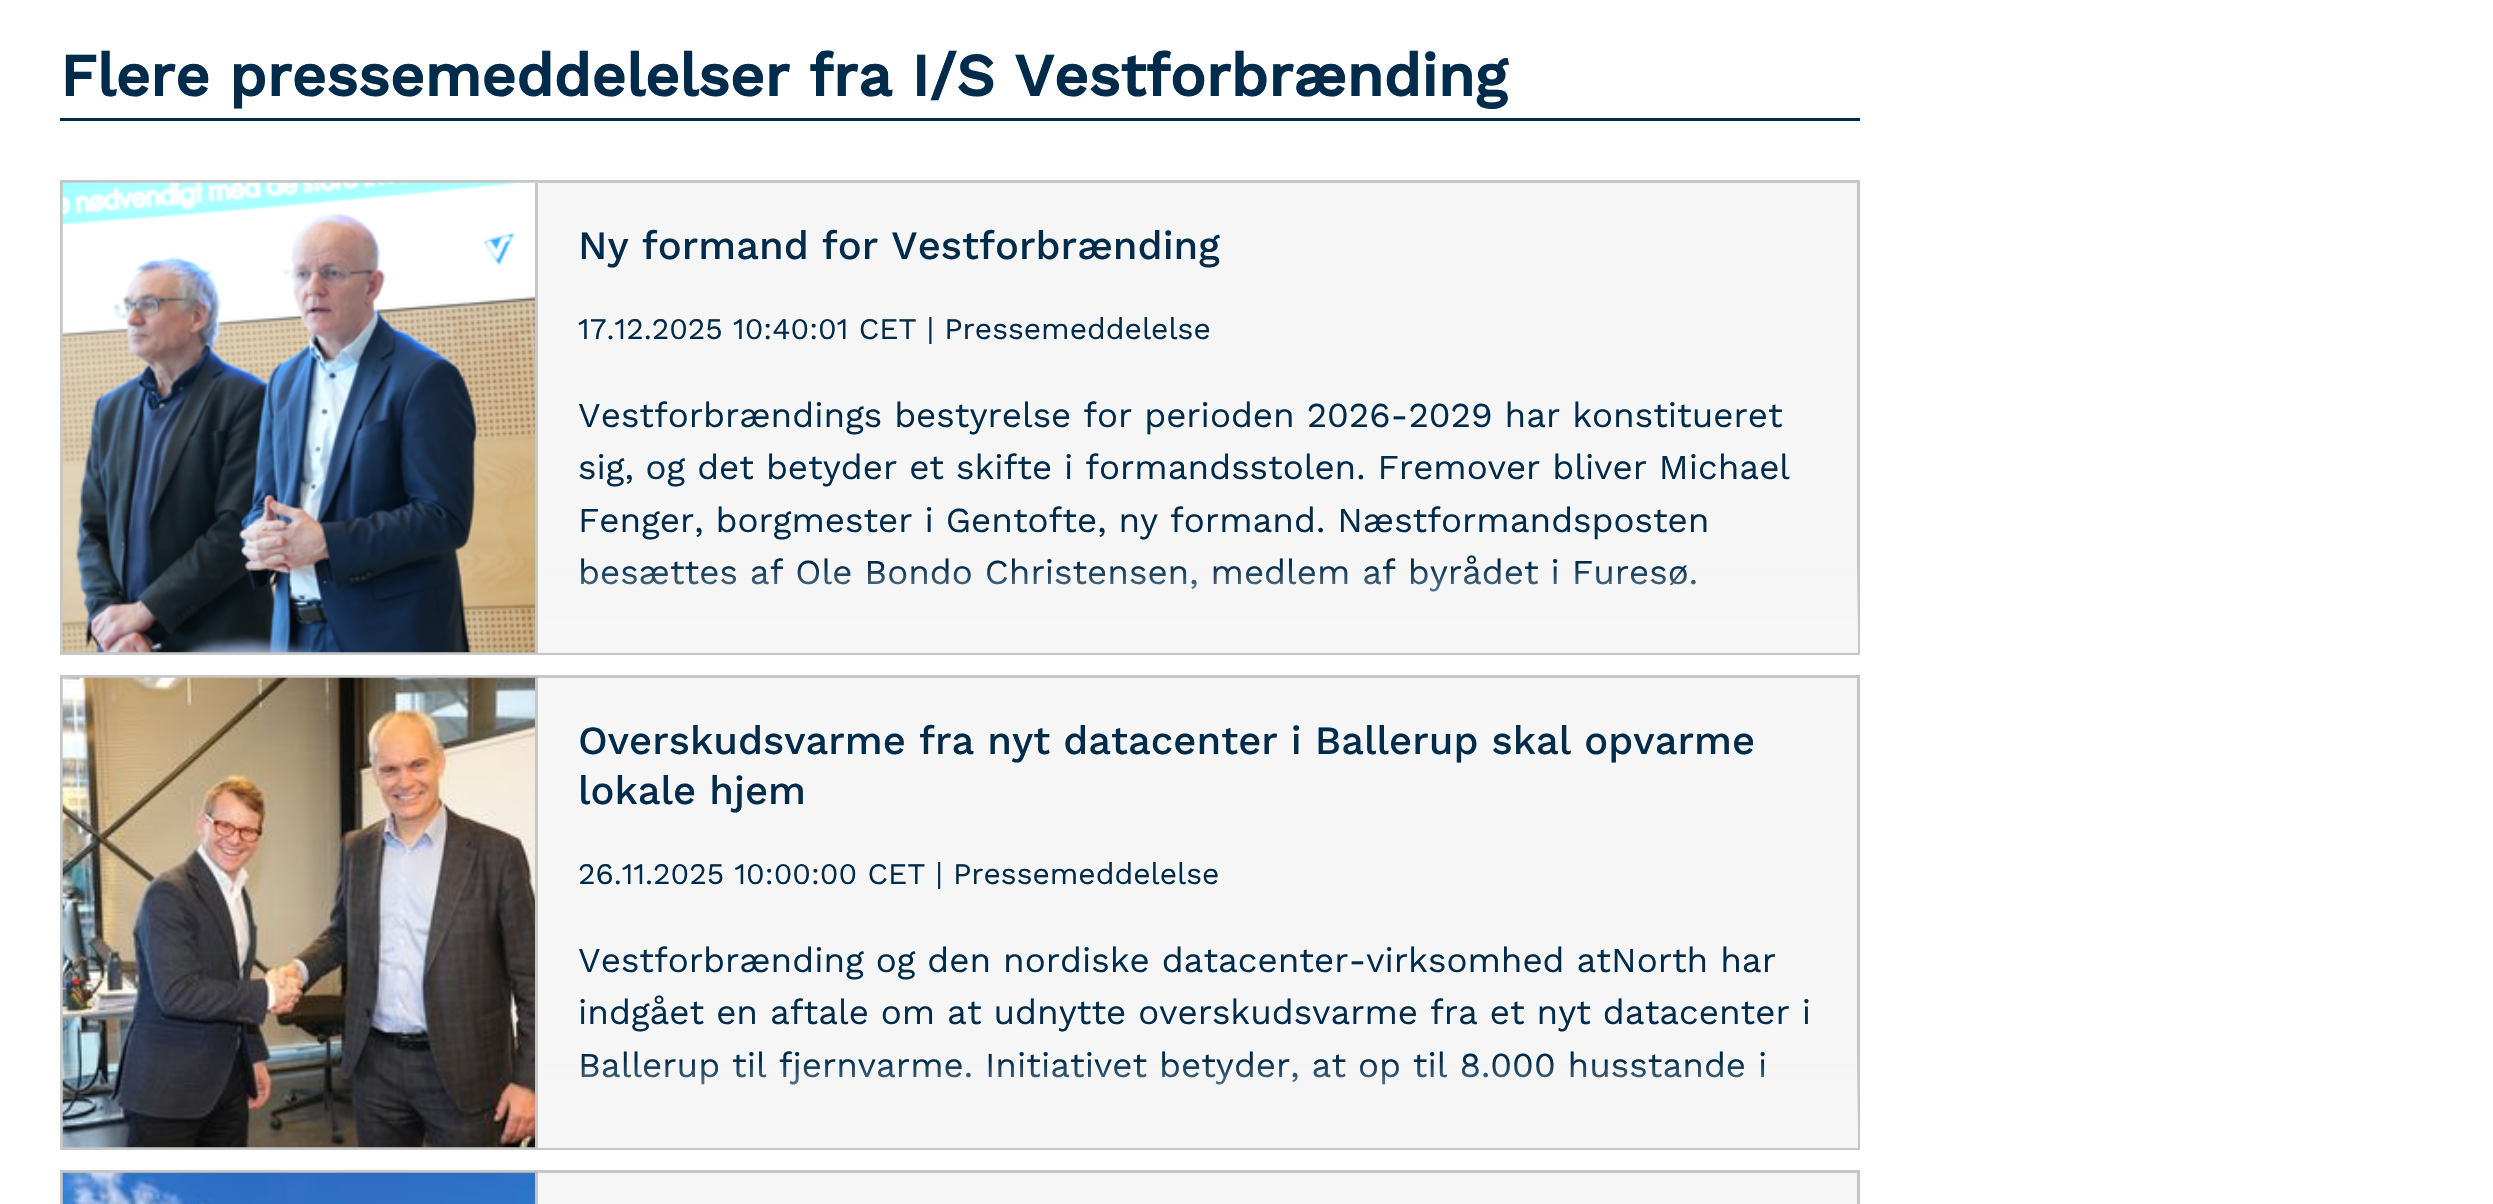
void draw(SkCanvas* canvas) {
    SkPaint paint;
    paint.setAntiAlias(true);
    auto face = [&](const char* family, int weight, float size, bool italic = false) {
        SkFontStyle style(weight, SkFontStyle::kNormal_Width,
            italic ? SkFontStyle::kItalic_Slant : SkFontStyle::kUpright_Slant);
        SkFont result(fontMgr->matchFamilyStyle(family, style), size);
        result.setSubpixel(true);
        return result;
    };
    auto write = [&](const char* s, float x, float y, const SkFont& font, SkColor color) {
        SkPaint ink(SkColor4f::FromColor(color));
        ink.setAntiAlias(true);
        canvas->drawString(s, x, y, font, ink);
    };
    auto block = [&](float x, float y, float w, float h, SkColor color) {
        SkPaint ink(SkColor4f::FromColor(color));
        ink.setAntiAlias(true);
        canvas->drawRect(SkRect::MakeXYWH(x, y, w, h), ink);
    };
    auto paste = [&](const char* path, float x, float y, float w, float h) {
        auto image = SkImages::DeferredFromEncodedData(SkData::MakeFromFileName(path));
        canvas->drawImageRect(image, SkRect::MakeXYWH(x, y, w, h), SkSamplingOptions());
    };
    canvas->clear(SK_ColorWHITE);
    block(60, 118, 1800, 3, SkColorSetRGB(0, 43, 75));
    auto kFont1 = face("Work Sans", 700, 60);
    write("Flere pressemeddelelser fra I/S Vestforbrænding", 60, 96, kFont1, SkColorSetRGB(0, 43, 75));
    block(538, 183, 1319, 452, SkColorSetRGB(246, 246, 246));
    paint.setStyle(SkPaint::kStroke_Style);
    paint.setStrokeWidth(3);
    paint.setColor(SkColorSetRGB(198, 198, 198));
    canvas->drawRect(SkRect::MakeXYWH(61.5f, 181.5f, 1797, 472), paint);
    paste("pic1.png", 62, 182, 476, 471);
    block(535, 183, 3, 470, SkColorSetRGB(198, 198, 198));
    auto kFont2 = face("Work Sans", 500, 40);
    write("Ny formand for Vestforbrænding", 578, 259, kFont2, SkColorSetRGB(0, 43, 75));
    auto kFont3 = face("Work Sans", 400, 30);
    write("17.12.2025 10:40:01 CET | Pressemeddelelse", 578, 339, kFont3, SkColorSetRGB(0, 43, 75));
    auto kFont4 = face("Work Sans", 400, 35);
    write("Vestforbrændings bestyrelse for perioden 2026-2029 har konstitueret", 578, 427, kFont4, SkColorSetRGB(0, 43, 75));
    write("sig, og det betyder et skifte i formandsstolen. Fremover bliver Michael", 578, 479, kFont4, SkColorSetRGB(0, 43, 75));
    write("Fenger, borgmester i Gentofte, ny formand. Næstformandsposten", 578, 532, kFont4, SkColorSetRGB(0, 43, 75));
    write("besættes af Ole Bondo Christensen, medlem af byrådet i Furesø.", 578, 584, kFont4, SkColorSetRGB(0, 43, 75));
    paint.setStyle(SkPaint::kFill_Style);
    {
        const SkColor colors[] = {SkColorSetARGB(0, 246, 246, 246), SkColorSetRGB(246, 246, 246)};
        const float stops[] = {0, 0.8f};
        const SkPoint ends[] = {{1198, 565}, {1198, 653}};
        paint.setShader(SkGradientShader::MakeLinear(ends, colors, stops, 2, SkTileMode::kClamp));
        paint.setAlpha(255);
    }
    canvas->drawRect(SkRect::MakeXYWH(538, 567, 1320, 86), paint);
    block(538, 678, 1319, 452, SkColorSetRGB(246, 246, 246));
    paint.setStyle(SkPaint::kStroke_Style);
    paint.setShader(nullptr);
    paint.setColor(SkColorSetRGB(198, 198, 198));
    canvas->drawRect(SkRect::MakeXYWH(61.5f, 676.5f, 1797, 472), paint);
    paste("pic2.png", 62, 677, 476, 471);
    block(535, 678, 3, 470, SkColorSetRGB(198, 198, 198));
    write("Overskudsvarme fra nyt datacenter i Ballerup skal opvarme", 578, 754, kFont2, SkColorSetRGB(0, 43, 75));
    write("lokale hjem", 578, 804, kFont2, SkColorSetRGB(0, 43, 75));
    write("26.11.2025 10:00:00 CET | Pressemeddelelse", 578, 884, kFont3, SkColorSetRGB(0, 43, 75));
    write("Vestforbrænding og den nordiske datacenter-virksomhed atNorth har", 578, 972, kFont4, SkColorSetRGB(0, 43, 75));
    write("indgået en aftale om at udnytte overskudsvarme fra et nyt datacenter i", 578, 1024, kFont4, SkColorSetRGB(0, 43, 75));
    write("Ballerup til fjernvarme. Initiativet betyder, at op til 8.000 husstande i", 578, 1077, kFont4, SkColorSetRGB(0, 43, 75));
    paint.setStyle(SkPaint::kFill_Style);
    {
        const SkColor colors[] = {SkColorSetARGB(0, 246, 246, 246), SkColorSetRGB(246, 246, 246)};
        const float stops[] = {0, 0.8f};
        const SkPoint ends[] = {{1198, 1060}, {1198, 1148}};
        paint.setShader(SkGradientShader::MakeLinear(ends, colors, stops, 2, SkTileMode::kClamp));
        paint.setAlpha(255);
    }
    canvas->drawRect(SkRect::MakeXYWH(538, 1062, 1320, 86), paint);
    block(538, 1173, 1319, 31, SkColorSetRGB(246, 246, 246));
    paint.setStyle(SkPaint::kStroke_Style);
    paint.setShader(nullptr);
    paint.setColor(SkColorSetRGB(198, 198, 198));
    canvas->drawRect(SkRect::MakeXYWH(61.5f, 1171.5f, 1797, 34), paint);
    paste("pic3.png", 62, 1172, 476, 32);
    block(535, 1173, 3, 31, SkColorSetRGB(198, 198, 198));
}
